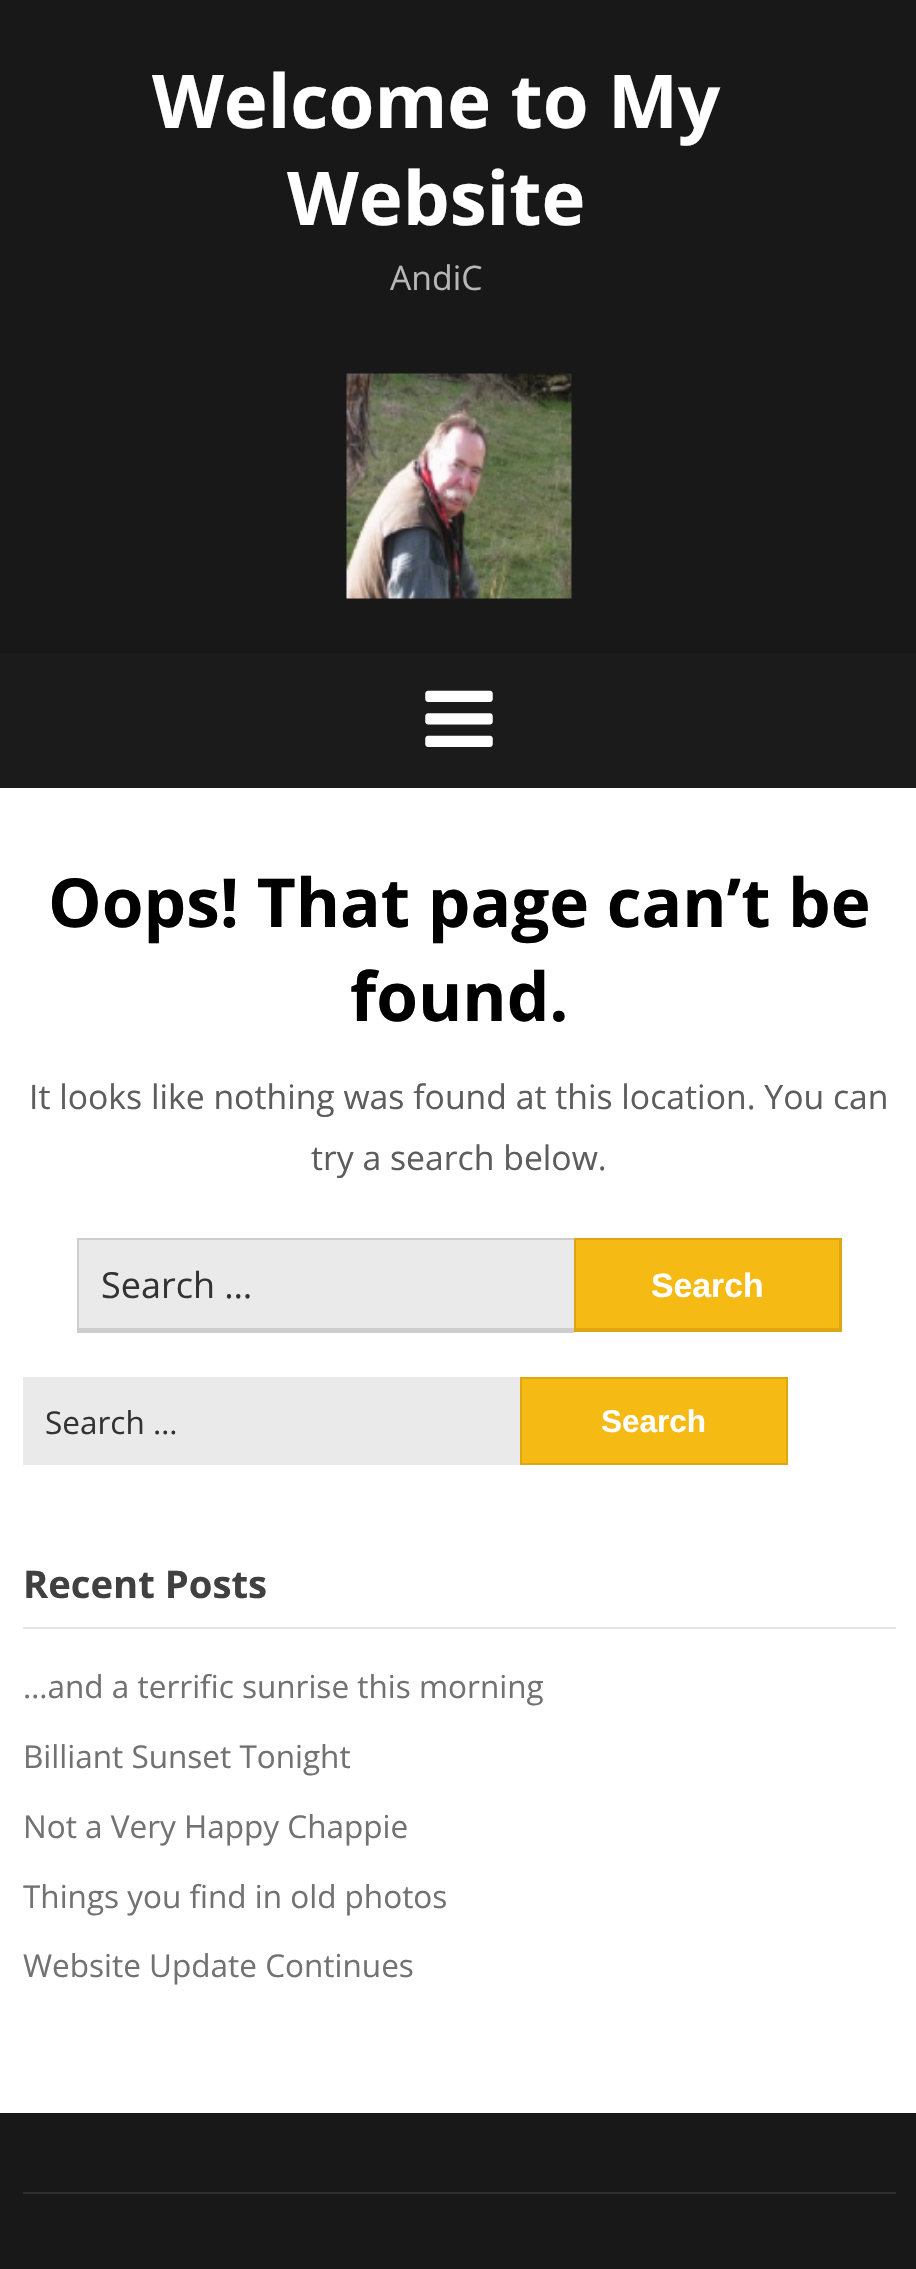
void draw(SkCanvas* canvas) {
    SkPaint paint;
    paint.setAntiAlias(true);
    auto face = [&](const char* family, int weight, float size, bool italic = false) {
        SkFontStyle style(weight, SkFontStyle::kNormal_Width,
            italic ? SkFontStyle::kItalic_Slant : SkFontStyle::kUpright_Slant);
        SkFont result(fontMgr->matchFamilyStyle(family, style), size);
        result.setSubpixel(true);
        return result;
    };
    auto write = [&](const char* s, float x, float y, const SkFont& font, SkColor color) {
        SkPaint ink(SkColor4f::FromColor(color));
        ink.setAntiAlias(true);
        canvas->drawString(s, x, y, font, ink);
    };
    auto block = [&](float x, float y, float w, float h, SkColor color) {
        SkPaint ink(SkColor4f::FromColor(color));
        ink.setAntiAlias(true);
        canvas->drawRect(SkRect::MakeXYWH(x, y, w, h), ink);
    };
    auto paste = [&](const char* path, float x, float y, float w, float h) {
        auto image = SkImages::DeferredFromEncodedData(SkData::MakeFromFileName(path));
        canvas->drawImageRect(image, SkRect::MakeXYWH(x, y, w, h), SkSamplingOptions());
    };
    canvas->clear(SK_ColorWHITE);
    block(0, 0, 916, 653, SkColorSetRGB(24, 24, 24));
    auto kFont1 = face("Open Sans", 700, 74.25f);
    write("Welcome to My", 152, 128, kFont1, SK_ColorWHITE);
    write("Website", 287, 225, kFont1, SK_ColorWHITE);
    auto kFont2 = face("Open Sans", 400, 33.75f);
    write("AndiC", 390, 290, kFont2, SkColorSetRGB(183, 183, 183));
    paste("pic1.png", 346, 373, 226, 226);
    block(0, 653, 916, 135, SkColorSetRGB(27, 27, 27));
    paste("pic2.png", 425, 690, 68, 57);
    auto kFont3 = face("Open Sans", 700, 67.5f);
    write("Oops! That page can’t be", 48, 927, kFont3, SK_ColorBLACK);
    write("found.", 350, 1021, kFont3, SK_ColorBLACK);
    write("It looks like nothing was found at this location. You can", 29, 1109, kFont2, SkColorSetRGB(93, 93, 93));
    write("try a search below.", 311, 1170, kFont2, SkColorSetRGB(93, 93, 93));
    block(79, 1240, 495, 88, SkColorSetRGB(234, 234, 234));
    block(77, 1238, 497, 2, SkColorSetRGB(205, 205, 205));
    block(77, 1328, 497, 5, SkColorSetRGB(205, 205, 205));
    block(77, 1238, 2, 94, SkColorSetRGB(205, 205, 205));
    auto kFont4 = face("Open Sans", 400, 36);
    write("Search …", 101, 1298, kFont4, SkColorSetRGB(51, 51, 51));
    block(574, 1238, 268, 94, SkColorSetRGB(245, 186, 20));
    paint.setColor(SkColorSetRGB(221, 167, 18));
    canvas->drawPath(SkPathBuilder().moveTo(574, 1238).lineTo(842, 1238).lineTo(839, 1240).lineTo(576, 1240).close().detach(), paint);
    paint.setColor(SkColorSetARGB(26, 0, 0, 0));
    canvas->drawPath(SkPathBuilder().moveTo(842, 1238).lineTo(842, 1332).lineTo(839, 1328).lineTo(839, 1240).close().detach(), paint);
    canvas->drawPath(SkPathBuilder().moveTo(842, 1332).lineTo(574, 1332).lineTo(576, 1328).lineTo(839, 1328).close().detach(), paint);
    canvas->drawPath(SkPathBuilder().moveTo(574, 1332).lineTo(574, 1238).lineTo(576, 1240).lineTo(576, 1328).close().detach(), paint);
    auto kFont5 = face("Liberation Sans", 700, 33.75f);
    write("Search", 651, 1297, kFont5, SK_ColorWHITE);
    block(23, 1377, 497, 88, SkColorSetRGB(234, 234, 234));
    auto kFont6 = face("Open Sans", 400, 31.5f);
    write("Search …", 45, 1434, kFont6, SkColorSetRGB(51, 51, 51));
    paint.setColor(SkColorSetRGB(245, 186, 20));
    canvas->drawRect(SkRect::MakeXYWH(521, 1378, 266, 86), paint);
    paint.setStyle(SkPaint::kStroke_Style);
    paint.setStrokeWidth(2);
    paint.setColor(SkColorSetRGB(221, 167, 18));
    canvas->drawRect(SkRect::MakeXYWH(521, 1378, 266, 86), paint);
    auto kFont7 = face("Liberation Sans", 700, 31.5f);
    write("Search", 601, 1432, kFont7, SK_ColorWHITE);
    block(23, 1627, 873, 2, SkColorSetRGB(228, 228, 228));
    auto kFont8 = face("Open Sans", 700, 38.25f);
    write("Recent Posts", 23, 1598, kFont8, SkColorSetRGB(64, 64, 64));
    write("…and a terrific sunrise this morning", 23, 1698, kFont6, SkColorSetRGB(114, 114, 114));
    write("Billiant Sunset Tonight", 23, 1768, kFont6, SkColorSetRGB(114, 114, 114));
    write("Not a Very Happy Chappie", 23, 1838, kFont6, SkColorSetRGB(114, 114, 114));
    write("Things you find in old photos", 23, 1908, kFont6, SkColorSetRGB(114, 114, 114));
    write("Website Update Continues", 23, 1977, kFont6, SkColorSetRGB(114, 114, 114));
    block(0, 2113, 916, 156, SkColorSetRGB(24, 24, 24));
    block(23, 2192, 873, 2, SkColorSetRGB(47, 47, 47));
}
